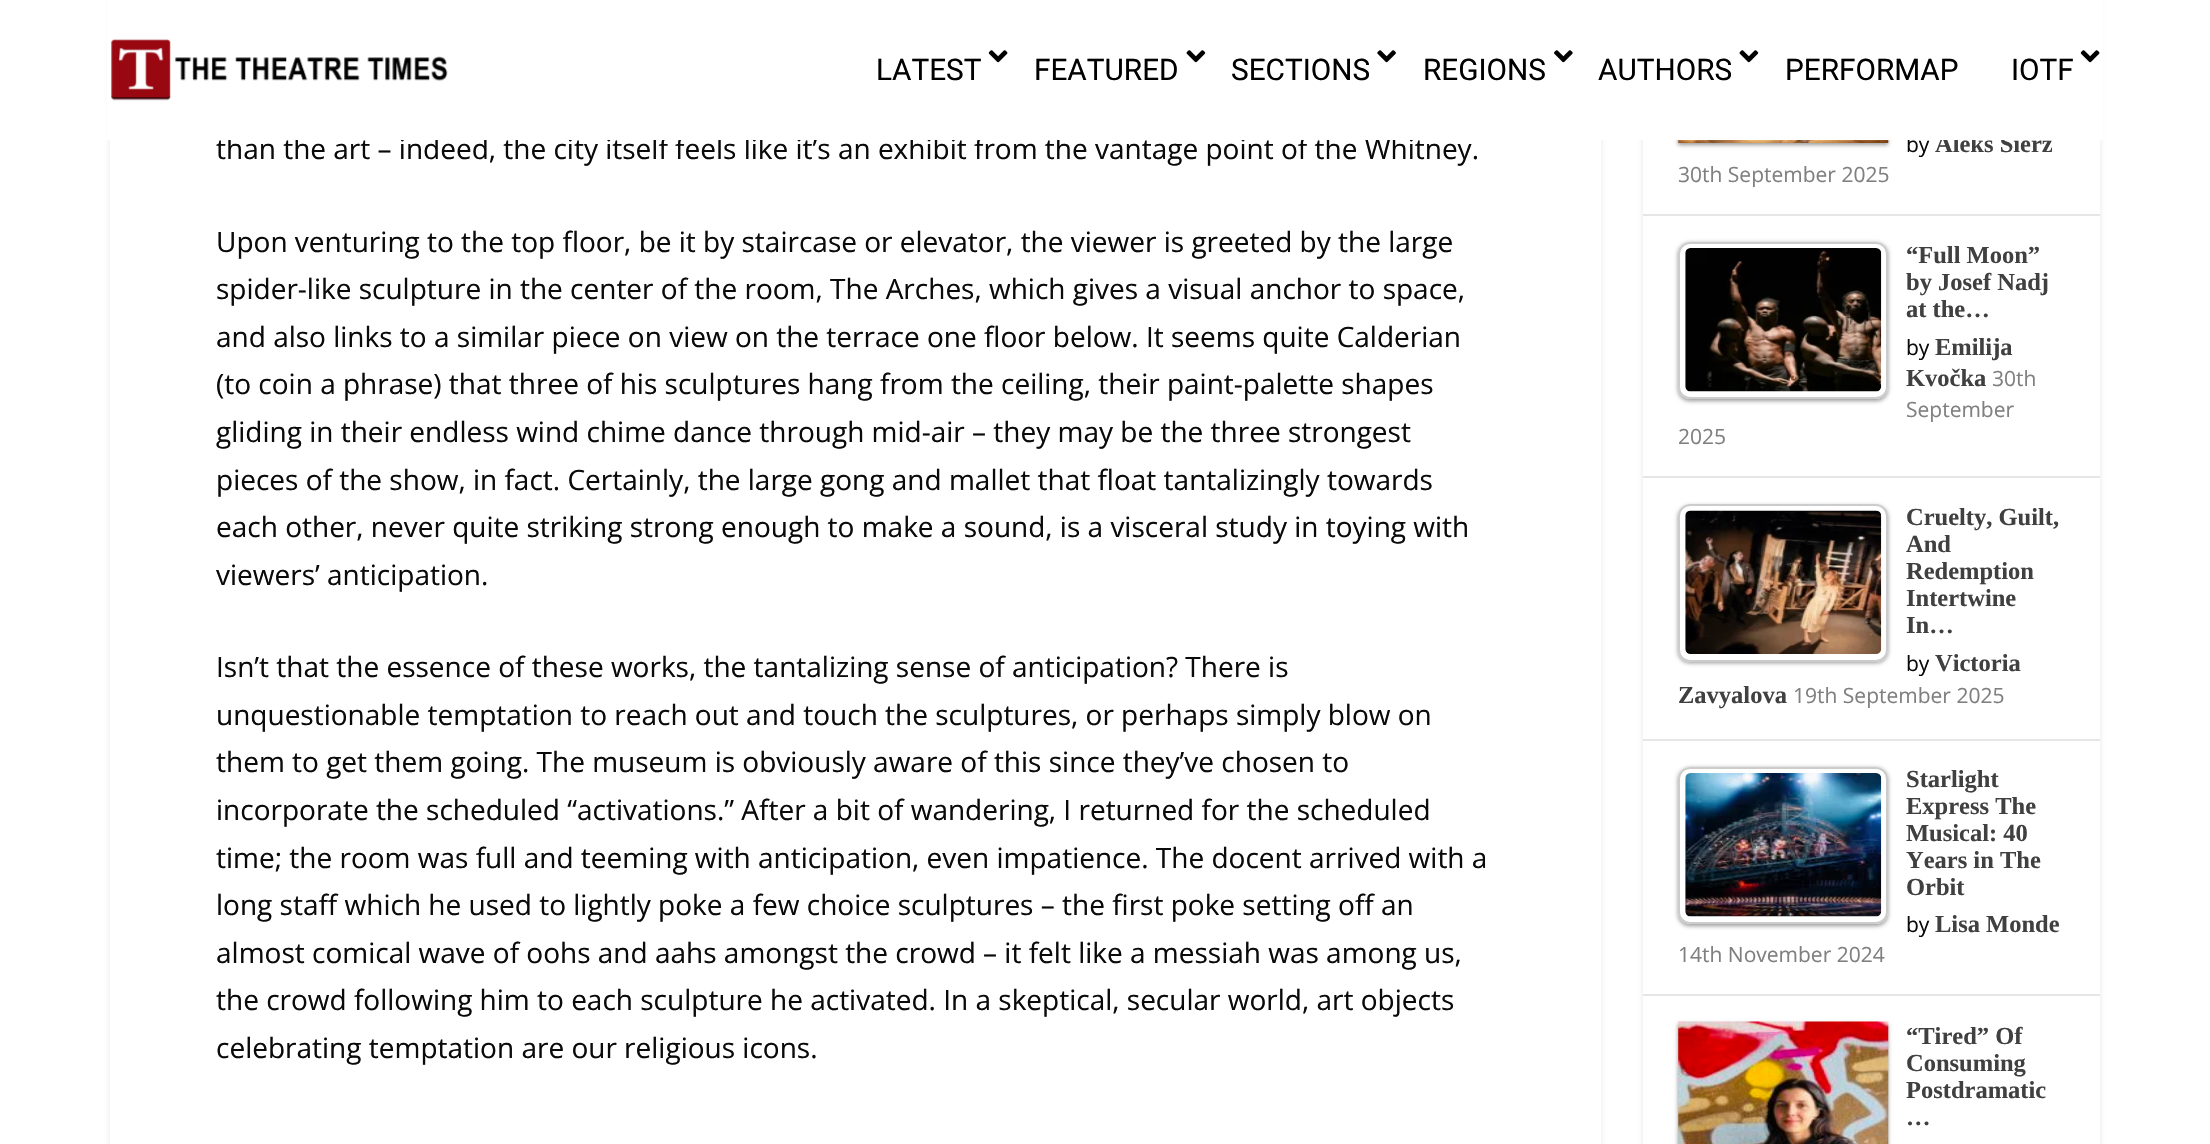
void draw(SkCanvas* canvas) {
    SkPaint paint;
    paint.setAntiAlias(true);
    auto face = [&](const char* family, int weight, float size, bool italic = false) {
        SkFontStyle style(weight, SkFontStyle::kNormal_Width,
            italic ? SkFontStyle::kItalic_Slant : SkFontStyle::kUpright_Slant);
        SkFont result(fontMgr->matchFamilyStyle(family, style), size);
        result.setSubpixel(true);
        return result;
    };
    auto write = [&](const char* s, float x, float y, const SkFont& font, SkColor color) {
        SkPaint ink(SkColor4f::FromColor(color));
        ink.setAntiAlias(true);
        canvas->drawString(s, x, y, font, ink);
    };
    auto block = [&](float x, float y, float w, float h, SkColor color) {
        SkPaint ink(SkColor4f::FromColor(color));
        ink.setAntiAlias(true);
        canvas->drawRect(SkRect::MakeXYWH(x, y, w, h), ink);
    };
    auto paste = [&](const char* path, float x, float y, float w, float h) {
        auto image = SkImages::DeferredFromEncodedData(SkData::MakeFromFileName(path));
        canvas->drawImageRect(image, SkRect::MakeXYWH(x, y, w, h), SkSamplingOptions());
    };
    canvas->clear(SK_ColorWHITE);
    paint.setColor(SkColorSetARGB(26, 0, 0, 0));
    paint.setMaskFilter(SkMaskFilter::MakeBlur(kNormal_SkBlurStyle, 2.5f));
    canvas->drawRoundRect(SkRect::MakeXYWH(110, -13, 1491, 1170), 5, 5, paint);
    paint.setMaskFilter(nullptr);
    block(110, 140, 1491, 1004, SK_ColorWHITE);
    auto kFont1 = face("Open Sans", 400, 28);
    write("than the art – indeed, the city itself feels like it’s an exhibit from the vantage point of the Whitney.", 216, 159, kFont1, SkColorSetRGB(10, 10, 10));
    paint.setMaskFilter(SkMaskFilter::MakeBlur(kNormal_SkBlurStyle, 2.5f));
    canvas->drawRoundRect(SkRect::MakeXYWH(1643, -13, 457, 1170), 5, 5, paint);
    paint.setMaskFilter(nullptr);
    block(1643, 140, 457, 1004, SK_ColorWHITE);
    paint.setColor(SkColorSetARGB(102, 0, 0, 0));
    paint.setMaskFilter(SkMaskFilter::MakeBlur(kNormal_SkBlurStyle, 2));
    canvas->drawRect(SkRect::MakeXYWH(1678, -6, 210, 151), paint);
    paint.setMaskFilter(nullptr);
    auto kFont2 = face("Open Sans", 400, 21);
    write("by", 1906, 152, kFont2, SkColorSetRGB(10, 10, 10));
    auto kFont3 = face("Liberation Serif", 700, 24.5f);
    write("Aleks Sierz", 1935, 152, kFont3, SkColorSetRGB(64, 64, 64));
    block(107, 0, 1996, 140, SK_ColorWHITE);
    paste("pic1.png", 111, 39, 337, 62);
    paste("pic2.png", 988, 50, 20, 13);
    auto kFont4 = face("Roboto", 400, 29.75f);
    write("LATEST", 876, 80, kFont4, SK_ColorBLACK);
    paste("pic3.png", 1186, 50, 20, 13);
    write("FEATURED", 1034, 80, kFont4, SK_ColorBLACK);
    paste("pic4.png", 1377, 50, 19, 13);
    write("SECTIONS", 1231, 80, kFont4, SK_ColorBLACK);
    paste("pic5.png", 1554, 50, 19, 13);
    write("REGIONS", 1423, 80, kFont4, SK_ColorBLACK);
    paste("pic3.png", 1739, 50, 20, 13);
    write("AUTHORS", 1598, 80, kFont4, SK_ColorBLACK);
    write("PERFORMAP", 1785, 80, kFont4, SK_ColorBLACK);
    paste("pic2.png", 2080, 50, 20, 13);
    write("IOTF", 2011, 80, kFont4, SK_ColorBLACK);
    write("Upon venturing to the top floor, be it by staircase or elevator, the viewer is greeted by the large", 216, 252, kFont1, SkColorSetRGB(10, 10, 10));
    write("spider-like sculpture in the center of the room, The Arches, which gives a visual anchor to space,", 216, 299, kFont1, SkColorSetRGB(10, 10, 10));
    write("and also links to a similar piece on view on the terrace one floor below. It seems quite Calderian", 216, 347, kFont1, SkColorSetRGB(10, 10, 10));
    write("(to coin a phrase) that three of his sculptures hang from the ceiling, their paint-palette shapes", 216, 394, kFont1, SkColorSetRGB(10, 10, 10));
    write("gliding in their endless wind chime dance through mid-air – they may be the three strongest", 216, 442, kFont1, SkColorSetRGB(10, 10, 10));
    write("pieces of the show, in fact. Certainly, the large gong and mallet that float tantalizingly towards", 216, 490, kFont1, SkColorSetRGB(10, 10, 10));
    write("each other, never quite striking strong enough to make a sound, is a visceral study in toying with", 216, 537, kFont1, SkColorSetRGB(10, 10, 10));
    write("viewers’ anticipation.", 216, 585, kFont1, SkColorSetRGB(10, 10, 10));
    write("Isn’t that the essence of these works, the tantalizing sense of anticipation? There is", 216, 677, kFont1, SkColorSetRGB(10, 10, 10));
    write("unquestionable temptation to reach out and touch the sculptures, or perhaps simply blow on", 216, 725, kFont1, SkColorSetRGB(10, 10, 10));
    write("them to get them going. The museum is obviously aware of this since they’ve chosen to", 216, 772, kFont1, SkColorSetRGB(10, 10, 10));
    write("incorporate the scheduled “activations.” After a bit of wandering, I returned for the scheduled", 216, 820, kFont1, SkColorSetRGB(10, 10, 10));
    write("time; the room was full and teeming with anticipation, even impatience. The docent arrived with a", 216, 868, kFont1, SkColorSetRGB(10, 10, 10));
    write("long staff which he used to lightly poke a few choice sculptures – the first poke setting off an", 216, 915, kFont1, SkColorSetRGB(10, 10, 10));
    write("almost comical wave of oohs and aahs amongst the crowd – it felt like a messiah was among us,", 216, 963, kFont1, SkColorSetRGB(10, 10, 10));
    write("the crowd following him to each sculpture he activated. In a skeptical, secular world, art objects", 216, 1010, kFont1, SkColorSetRGB(10, 10, 10));
    write("celebrating temptation are our religious icons.", 216, 1058, kFont1, SkColorSetRGB(10, 10, 10));
    block(1643, 214, 457, 2, SkColorSetRGB(230, 230, 230));
    paste("pic6.png", 1678, 140, 211, 3);
    write("30th September 2025", 1678, 182, kFont2, SkColorSetRGB(128, 128, 128));
    block(1643, 476, 457, 2, SkColorSetRGB(230, 230, 230));
    canvas->save();
    canvas->clipPath(SkPathBuilder(SkPathFillType::kEvenOdd).moveTo(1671, 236).lineTo(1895, 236).lineTo(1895, 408).lineTo(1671, 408).close().moveTo(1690, 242).lineTo(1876, 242).cubicTo(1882.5f, 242, 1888, 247.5f, 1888, 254).lineTo(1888, 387).cubicTo(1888, 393.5f, 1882.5f, 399, 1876, 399).lineTo(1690, 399).cubicTo(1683.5f, 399, 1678, 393.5f, 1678, 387).lineTo(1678, 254).cubicTo(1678, 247.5f, 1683.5f, 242, 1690, 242).close().detach(), true);
    paint.setMaskFilter(SkMaskFilter::MakeBlur(kNormal_SkBlurStyle, 2));
    canvas->drawRoundRect(SkRect::MakeXYWH(1678, 243, 210, 158), 12, 12, paint);
    paint.setMaskFilter(nullptr);
    canvas->restore();
    paint.setStyle(SkPaint::kStroke_Style);
    paint.setStrokeWidth(2);
    paint.setColor(SkColorSetRGB(204, 204, 204));
    canvas->drawRoundRect(SkRect::MakeXYWH(1679, 243, 208, 155), 11, 11, paint);
    paste("pic7.png", 1685, 248, 197, 144);
    write("“Full Moon”", 1906, 263, kFont3, SkColorSetRGB(64, 64, 64));
    write("by Josef Nadj", 1906, 290, kFont3, SkColorSetRGB(64, 64, 64));
    write("at the…", 1906, 317, kFont3, SkColorSetRGB(64, 64, 64));
    write("by", 1906, 355, kFont2, SkColorSetRGB(10, 10, 10));
    write("Emilija", 1935, 355, kFont3, SkColorSetRGB(64, 64, 64));
    write("Kvočka", 1906, 386, kFont3, SkColorSetRGB(64, 64, 64));
    write("30th", 1992, 386, kFont2, SkColorSetRGB(128, 128, 128));
    write("September", 1906, 417, kFont2, SkColorSetRGB(128, 128, 128));
    write("2025", 1678, 444, kFont2, SkColorSetRGB(128, 128, 128));
    block(1643, 739, 457, 2, SkColorSetRGB(230, 230, 230));
    canvas->save();
    canvas->clipPath(SkPathBuilder(SkPathFillType::kEvenOdd).moveTo(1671, 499).lineTo(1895, 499).lineTo(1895, 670).lineTo(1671, 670).close().moveTo(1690, 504).lineTo(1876, 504).cubicTo(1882.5f, 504, 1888, 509.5f, 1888, 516).lineTo(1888, 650).cubicTo(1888, 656.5f, 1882.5f, 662, 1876, 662).lineTo(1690, 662).cubicTo(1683.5f, 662, 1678, 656.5f, 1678, 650).lineTo(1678, 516).cubicTo(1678, 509.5f, 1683.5f, 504, 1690, 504).close().detach(), true);
    paint.setStyle(SkPaint::kFill_Style);
    paint.setColor(SkColorSetARGB(102, 0, 0, 0));
    paint.setMaskFilter(SkMaskFilter::MakeBlur(kNormal_SkBlurStyle, 2));
    canvas->drawRoundRect(SkRect::MakeXYWH(1678, 506, 210, 157), 12, 12, paint);
    paint.setMaskFilter(nullptr);
    canvas->restore();
    paint.setStyle(SkPaint::kStroke_Style);
    paint.setColor(SkColorSetRGB(204, 204, 204));
    canvas->drawRoundRect(SkRect::MakeXYWH(1679, 505, 208, 156), 11, 11, paint);
    paste("pic8.png", 1685, 510, 197, 144);
    write("Cruelty, Guilt,", 1906, 525, kFont3, SkColorSetRGB(64, 64, 64));
    write("And", 1906, 552, kFont3, SkColorSetRGB(64, 64, 64));
    write("Redemption", 1906, 579, kFont3, SkColorSetRGB(64, 64, 64));
    write("Intertwine", 1906, 606, kFont3, SkColorSetRGB(64, 64, 64));
    write("In…", 1906, 633, kFont3, SkColorSetRGB(64, 64, 64));
    write("by", 1906, 671, kFont2, SkColorSetRGB(10, 10, 10));
    write("Victoria", 1935, 671, kFont3, SkColorSetRGB(64, 64, 64));
    write("Zavyalova", 1678, 703, kFont3, SkColorSetRGB(64, 64, 64));
    write("19th September 2025", 1793, 703, kFont2, SkColorSetRGB(128, 128, 128));
    block(1643, 994, 457, 2, SkColorSetRGB(230, 230, 230));
    canvas->save();
    canvas->clipPath(SkPathBuilder(SkPathFillType::kEvenOdd).moveTo(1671, 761).lineTo(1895, 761).lineTo(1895, 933).lineTo(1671, 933).close().moveTo(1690, 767).lineTo(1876, 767).cubicTo(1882.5f, 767, 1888, 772.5f, 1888, 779).lineTo(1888, 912).cubicTo(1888, 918.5f, 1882.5f, 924, 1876, 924).lineTo(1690, 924).cubicTo(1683.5f, 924, 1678, 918.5f, 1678, 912).lineTo(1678, 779).cubicTo(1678, 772.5f, 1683.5f, 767, 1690, 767).close().detach(), true);
    paint.setStyle(SkPaint::kFill_Style);
    paint.setColor(SkColorSetARGB(102, 0, 0, 0));
    paint.setMaskFilter(SkMaskFilter::MakeBlur(kNormal_SkBlurStyle, 2));
    canvas->drawRoundRect(SkRect::MakeXYWH(1678, 768, 210, 158), 12, 12, paint);
    paint.setMaskFilter(nullptr);
    canvas->restore();
    paint.setStyle(SkPaint::kStroke_Style);
    paint.setColor(SkColorSetRGB(204, 204, 204));
    canvas->drawRoundRect(SkRect::MakeXYWH(1679, 768, 208, 155), 11, 11, paint);
    paste("pic9.png", 1685, 773, 197, 144);
    write("Starlight", 1906, 787, kFont3, SkColorSetRGB(64, 64, 64));
    write("Express The", 1906, 814, kFont3, SkColorSetRGB(64, 64, 64));
    write("Musical: 40", 1906, 841, kFont3, SkColorSetRGB(64, 64, 64));
    write("Years in The", 1906, 868, kFont3, SkColorSetRGB(64, 64, 64));
    write("Orbit", 1906, 895, kFont3, SkColorSetRGB(64, 64, 64));
    write("by", 1906, 932, kFont2, SkColorSetRGB(10, 10, 10));
    write("Lisa Monde", 1935, 932, kFont3, SkColorSetRGB(64, 64, 64));
    write("14th November 2024", 1678, 962, kFont2, SkColorSetRGB(128, 128, 128));
    paint.setStyle(SkPaint::kFill_Style);
    paint.setColor(SkColorSetARGB(102, 0, 0, 0));
    paint.setMaskFilter(SkMaskFilter::MakeBlur(kNormal_SkBlurStyle, 2));
    canvas->drawRect(SkRect::MakeXYWH(1678, 1024, 210, 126), paint);
    paint.setMaskFilter(nullptr);
    paste("pic10.png", 1678, 1021, 211, 123);
    write("“Tired” Of", 1906, 1044, kFont3, SkColorSetRGB(64, 64, 64));
    write("Consuming", 1906, 1071, kFont3, SkColorSetRGB(64, 64, 64));
    write("Postdramatic", 1906, 1098, kFont3, SkColorSetRGB(64, 64, 64));
    write("…", 1906, 1125, kFont3, SkColorSetRGB(64, 64, 64));
}
